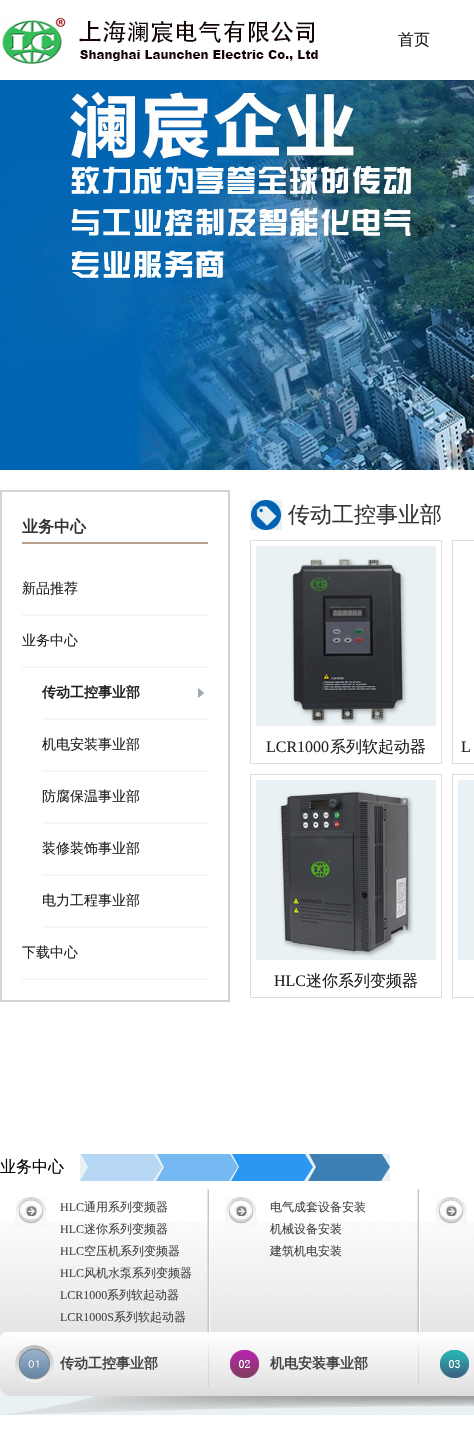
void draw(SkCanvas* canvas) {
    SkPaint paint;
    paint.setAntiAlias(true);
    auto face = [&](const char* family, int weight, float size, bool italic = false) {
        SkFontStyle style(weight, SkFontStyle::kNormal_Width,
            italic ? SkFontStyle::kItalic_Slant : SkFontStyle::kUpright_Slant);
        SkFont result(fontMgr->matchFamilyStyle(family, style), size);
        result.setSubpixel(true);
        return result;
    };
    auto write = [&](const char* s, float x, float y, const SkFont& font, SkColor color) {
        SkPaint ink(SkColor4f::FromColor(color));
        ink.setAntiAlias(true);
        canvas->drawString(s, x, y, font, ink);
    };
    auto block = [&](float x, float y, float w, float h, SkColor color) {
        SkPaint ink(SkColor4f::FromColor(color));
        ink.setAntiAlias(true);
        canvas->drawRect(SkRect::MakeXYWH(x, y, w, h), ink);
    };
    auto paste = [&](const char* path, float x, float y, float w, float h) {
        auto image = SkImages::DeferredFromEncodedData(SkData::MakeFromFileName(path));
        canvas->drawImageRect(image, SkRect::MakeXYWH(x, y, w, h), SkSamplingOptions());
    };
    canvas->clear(SK_ColorWHITE);
    paste("pic1.png", 2, 17, 316, 47);
    auto kFont1 = face("WenQuanYi Zen Hei", 500, 16);
    write("首页", 398, 45, kFont1, SkColorSetRGB(28, 28, 28));
    paste("pic2.png", 0, 80, 474, 390);
    paint.setStyle(SkPaint::kStroke_Style);
    paint.setStrokeWidth(2);
    paint.setColor(SkColorSetRGB(211, 211, 211));
    canvas->drawRect(SkRect::MakeXYWH(1, 491, 228, 510), paint);
    block(22, 542, 186, 2, SkColorSetRGB(182, 161, 144));
    auto kFont2 = face("WenQuanYi Zen Hei", 700, 16);
    write("业务中心", 22, 532, kFont2, SkColorSetRGB(51, 51, 51));
    block(22, 614, 186, 2, SkColorSetRGB(245, 245, 245));
    auto kFont3 = face("WenQuanYi Zen Hei", 500, 14);
    write("新品推荐", 22, 593, kFont3, SkColorSetRGB(34, 34, 34));
    block(22, 666, 186, 2, SkColorSetRGB(245, 245, 245));
    write("业务中心", 22, 645, kFont3, SkColorSetRGB(34, 34, 34));
    paste("pic3.png", 198, 688, 6, 10);
    block(42, 718, 166, 2, SkColorSetRGB(245, 245, 245));
    auto kFont4 = face("WenQuanYi Zen Hei", 700, 14);
    write("传动工控事业部", 42, 697, kFont4, SkColorSetRGB(34, 34, 34));
    block(42, 770, 166, 2, SkColorSetRGB(245, 245, 245));
    write("机电安装事业部", 42, 749, kFont3, SkColorSetRGB(34, 34, 34));
    block(42, 822, 166, 2, SkColorSetRGB(245, 245, 245));
    write("防腐保温事业部", 42, 801, kFont3, SkColorSetRGB(34, 34, 34));
    block(42, 874, 166, 2, SkColorSetRGB(245, 245, 245));
    write("装修装饰事业部", 42, 853, kFont3, SkColorSetRGB(34, 34, 34));
    block(42, 926, 166, 2, SkColorSetRGB(245, 245, 245));
    write("电力工程事业部", 42, 905, kFont3, SkColorSetRGB(34, 34, 34));
    block(22, 978, 186, 2, SkColorSetRGB(245, 245, 245));
    write("下载中心", 22, 957, kFont3, SkColorSetRGB(34, 34, 34));
    paste("pic4.png", 250, 500, 32, 30);
    auto kFont5 = face("WenQuanYi Zen Hei", 500, 22);
    write("传动工控事业部", 288, 522, kFont5, SkColorSetRGB(51, 51, 51));
    paint.setStrokeWidth(1);
    paint.setColor(SkColorSetRGB(221, 221, 221));
    canvas->drawRect(SkRect::MakeXYWH(250.5f, 540.5f, 191, 223), paint);
    paste("pic5.png", 256, 546, 180, 180);
    auto kFont6 = face("Liberation Serif", 400, 16);
    write("LCR1000", 266, 752, kFont6, SkColorSetRGB(34, 34, 34));
    write("系列软起动器", 330, 752, kFont1, SkColorSetRGB(34, 34, 34));
    canvas->drawRect(SkRect::MakeXYWH(452.5f, 540.5f, 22, 223), paint);
    write("L", 461, 752, kFont6, SkColorSetRGB(34, 34, 34));
    canvas->drawRect(SkRect::MakeXYWH(250.5f, 774.5f, 191, 223), paint);
    paste("pic6.png", 256, 780, 180, 180);
    write("HLC", 274, 986, kFont6, SkColorSetRGB(34, 34, 34));
    write("迷你系列变频器", 306, 986, kFont1, SkColorSetRGB(34, 34, 34));
    canvas->drawRect(SkRect::MakeXYWH(452.5f, 774.5f, 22, 223), paint);
    block(458, 780, 16, 180, SkColorSetRGB(233, 241, 244));
    paste("pic7.png", 80, 1154, 310, 27);
    write("业务中心", 0, 1172, kFont1, SK_ColorBLACK);
    paste("pic9.png", 0, 1222, 474, 174);
    paste("pic8.png", 0, 1330, 10, 66);
    paste("pic10.png", 15, 1196, 32, 32);
    auto kFont7 = face("Liberation Serif", 400, 12);
    write("HLC", 60, 1211, kFont7, SkColorSetRGB(68, 68, 68));
    auto kFont8 = face("WenQuanYi Zen Hei", 500, 12);
    write("通用系列变频器", 84, 1211, kFont8, SkColorSetRGB(68, 68, 68));
    write("HLC", 60, 1233, kFont7, SkColorSetRGB(68, 68, 68));
    write("迷你系列变频器", 84, 1233, kFont8, SkColorSetRGB(68, 68, 68));
    write("HLC", 60, 1255, kFont7, SkColorSetRGB(68, 68, 68));
    write("空压机系列变频器", 84, 1255, kFont8, SkColorSetRGB(68, 68, 68));
    write("HLC", 60, 1277, kFont7, SkColorSetRGB(68, 68, 68));
    write("风机水泵系列变频器", 84, 1277, kFont8, SkColorSetRGB(68, 68, 68));
    write("LCR1000", 60, 1299, kFont7, SkColorSetRGB(68, 68, 68));
    write("系列软起动器", 107, 1299, kFont8, SkColorSetRGB(68, 68, 68));
    write("LCR1000S", 60, 1321, kFont7, SkColorSetRGB(68, 68, 68));
    write("系列软起动器", 114, 1321, kFont8, SkColorSetRGB(68, 68, 68));
    paste("pic11.png", 15, 1345, 39, 38);
    write("传动工控事业部", 60, 1368, kFont4, SkColorSetRGB(68, 68, 68));
    paste("pic12.png", 207, 1188, 3, 198);
    paste("pic10.png", 225, 1196, 32, 32);
    write("电气成套设备安装", 270, 1211, kFont8, SkColorSetRGB(68, 68, 68));
    write("机械设备安装", 270, 1233, kFont8, SkColorSetRGB(68, 68, 68));
    write("建筑机电安装", 270, 1255, kFont8, SkColorSetRGB(68, 68, 68));
    paste("pic13.png", 230, 1350, 29, 28);
    write("机电安装事业部", 270, 1368, kFont4, SkColorSetRGB(68, 68, 68));
    paste("pic12.png", 417, 1188, 3, 198);
    paste("pic10.png", 435, 1196, 32, 32);
    paste("pic14.png", 440, 1350, 29, 28);
    paste("pic15.png", 0, 1396, 474, 19);
}
